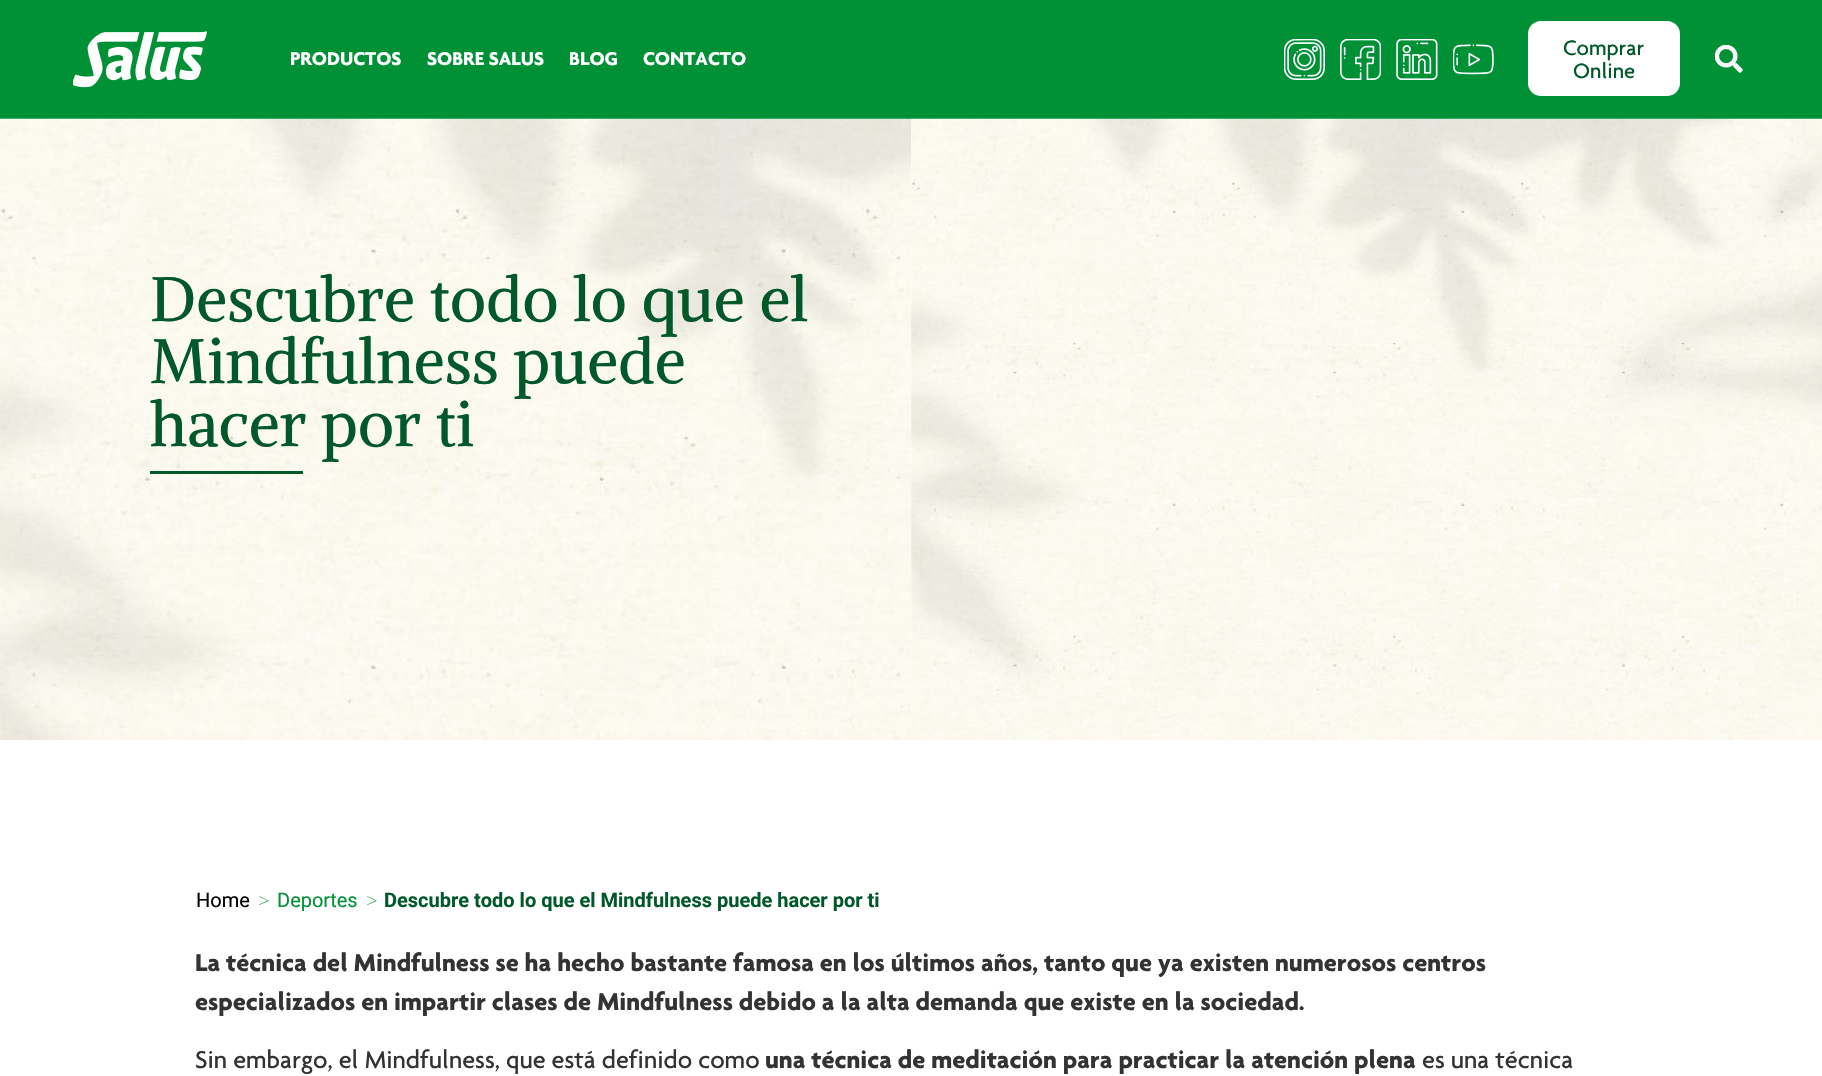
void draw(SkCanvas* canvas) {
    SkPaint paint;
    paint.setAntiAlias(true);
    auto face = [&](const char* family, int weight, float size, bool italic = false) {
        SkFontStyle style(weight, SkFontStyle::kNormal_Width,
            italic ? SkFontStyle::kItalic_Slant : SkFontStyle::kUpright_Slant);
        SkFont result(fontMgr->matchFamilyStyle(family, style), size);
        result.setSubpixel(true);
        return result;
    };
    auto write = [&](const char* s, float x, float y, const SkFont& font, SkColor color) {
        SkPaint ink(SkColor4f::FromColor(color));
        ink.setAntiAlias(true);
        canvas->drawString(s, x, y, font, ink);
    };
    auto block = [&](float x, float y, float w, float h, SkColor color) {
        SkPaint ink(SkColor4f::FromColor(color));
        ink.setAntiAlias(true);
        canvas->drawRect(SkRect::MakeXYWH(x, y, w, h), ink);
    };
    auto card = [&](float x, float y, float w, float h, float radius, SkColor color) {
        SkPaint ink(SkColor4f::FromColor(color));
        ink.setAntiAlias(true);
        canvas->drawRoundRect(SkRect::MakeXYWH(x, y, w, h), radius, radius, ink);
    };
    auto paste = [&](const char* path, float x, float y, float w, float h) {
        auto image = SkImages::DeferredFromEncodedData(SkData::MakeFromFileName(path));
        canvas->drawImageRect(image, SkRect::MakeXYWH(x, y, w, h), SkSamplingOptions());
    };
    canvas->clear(SK_ColorWHITE);
    block(0, 0, 1822, 119, SkColorSetRGB(0, 145, 55));
    paste("pic1.png", 73, 31, 134, 57);
    auto kFont1 = face("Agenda", 700, 20);
    write("PRODUCTOS", 290, 65, kFont1, SK_ColorWHITE);
    write("SOBRE SALUS", 427, 65, kFont1, SK_ColorWHITE);
    write("BLOG", 569, 65, kFont1, SK_ColorWHITE);
    write("CONTACTO", 643, 65, kFont1, SK_ColorWHITE);
    paste("pic2.png", 1284, 39, 41, 41);
    paste("pic3.png", 1340, 39, 41, 41);
    paste("pic4.png", 1396, 39, 42, 41);
    paste("pic5.png", 1453, 44, 41, 31);
    card(1528, 21, 152, 75, 13, SK_ColorWHITE);
    auto kFont2 = face("Agenda", 500, 22.5f);
    write("Comprar", 1563, 55, kFont2, SkColorSetRGB(0, 88, 43));
    write("Online", 1573, 78, kFont2, SkColorSetRGB(0, 88, 43));
    paste("pic6.png", 1715, 45, 28, 28);
    paste("pic7.png", 0, 118, 912, 622);
    auto kFont3 = face("Alike", 400, 62.5f);
    write("Descubre todo lo que el", 150, 321, kFont3, SkColorSetRGB(0, 88, 43));
    write("Mindfulness puede", 150, 383, kFont3, SkColorSetRGB(0, 88, 43));
    write("hacer por ti", 150, 446, kFont3, SkColorSetRGB(0, 88, 43));
    block(150, 471, 153, 3, SkColorSetRGB(0, 88, 43));
    paste("pic8.png", 911, 118, 911, 622);
    auto kFont4 = face("Roboto", 400, 20);
    write("Home", 196, 907, kFont4, SK_ColorBLACK);
    auto kFont5 = face("Roboto", 100, 22.5f);
    write(">", 258, 908, kFont5, SkColorSetRGB(0, 145, 55));
    write("Deportes", 277, 907, kFont4, SkColorSetRGB(0, 145, 55));
    write(">", 366, 908, kFont5, SkColorSetRGB(0, 145, 55));
    auto kFont6 = face("Roboto", 700, 20);
    write("Descubre todo lo que el Mindfulness puede hacer por ti", 384, 907, kFont6, SkColorSetRGB(0, 88, 43));
    auto kFont7 = face("Agenda", 700, 26.25f);
    write("La técnica del Mindfulness se ha hecho bastante famosa en los últimos años, tanto que ya existen numerosos centros", 195, 971, kFont7, SkColorSetRGB(51, 51, 51));
    write("especializados en impartir clases de Mindfulness debido a la alta demanda que existe en la sociedad.", 195, 1010, kFont7, SkColorSetRGB(51, 51, 51));
    auto kFont8 = face("Agenda", 500, 26.25f);
    write("Sin embargo, el Mindfulness, que está definido como", 195, 1068, kFont8, SkColorSetRGB(51, 51, 51));
    write("una técnica de meditación para practicar la atención plena", 765, 1068, kFont7, SkColorSetRGB(51, 51, 51));
    write("es una técnica", 1422, 1068, kFont8, SkColorSetRGB(51, 51, 51));
}
